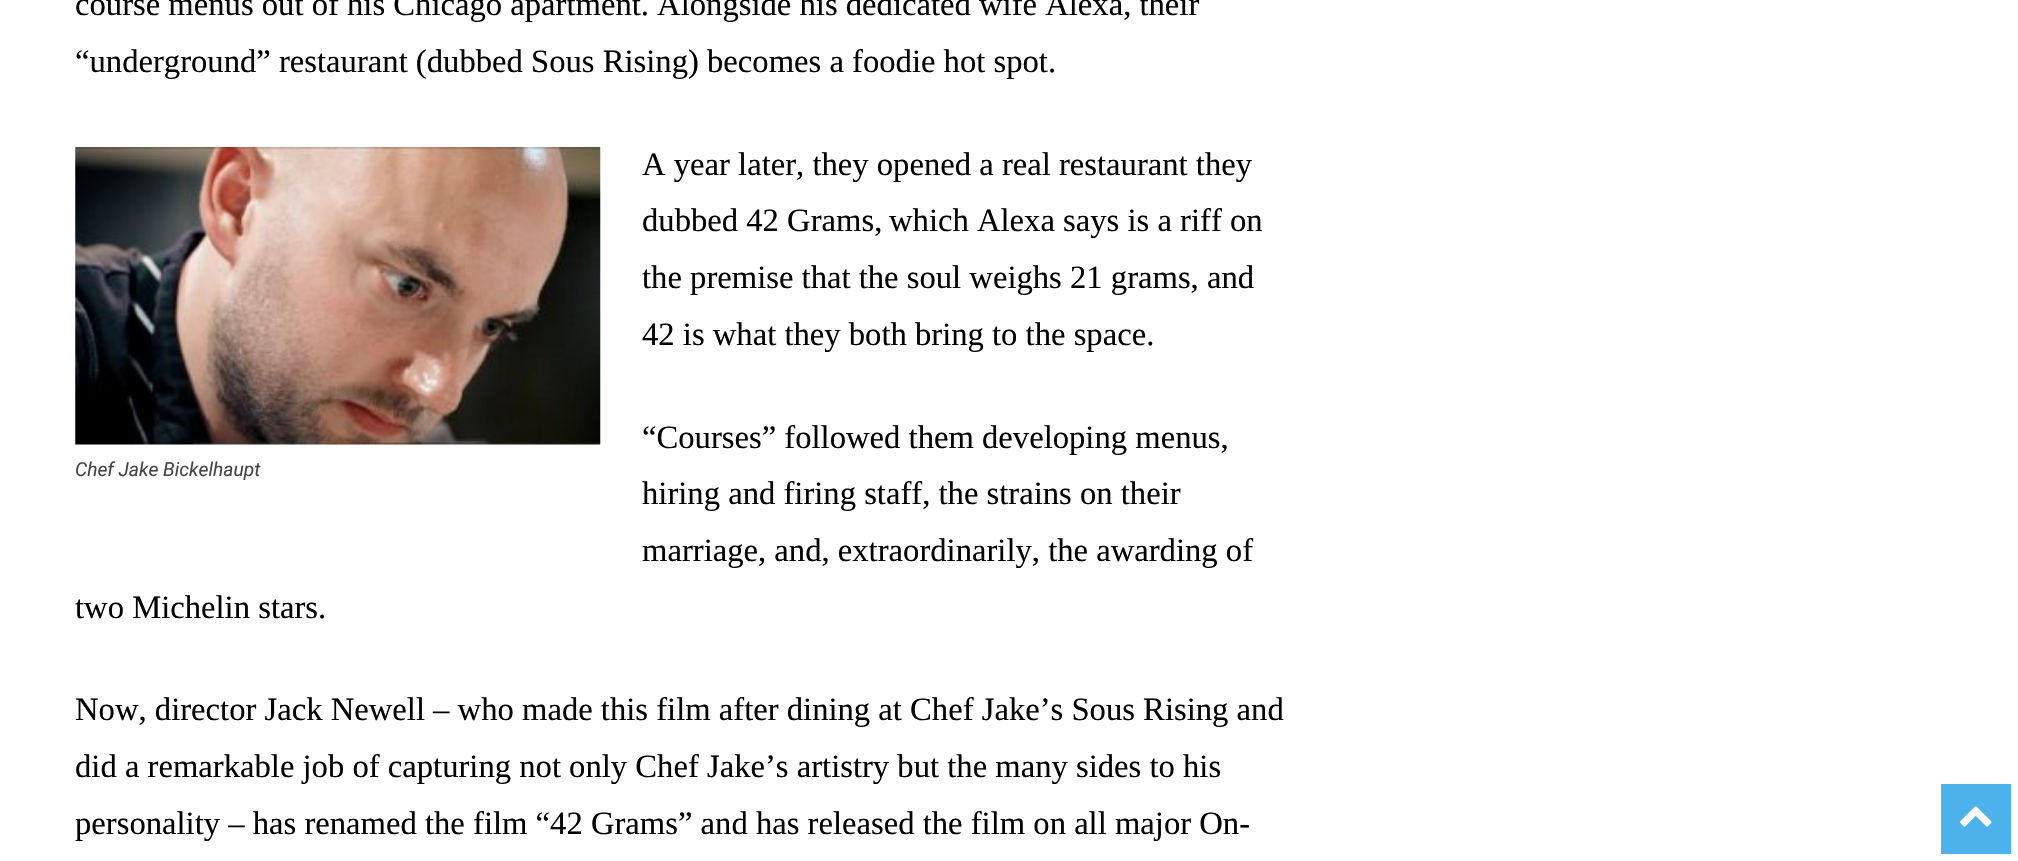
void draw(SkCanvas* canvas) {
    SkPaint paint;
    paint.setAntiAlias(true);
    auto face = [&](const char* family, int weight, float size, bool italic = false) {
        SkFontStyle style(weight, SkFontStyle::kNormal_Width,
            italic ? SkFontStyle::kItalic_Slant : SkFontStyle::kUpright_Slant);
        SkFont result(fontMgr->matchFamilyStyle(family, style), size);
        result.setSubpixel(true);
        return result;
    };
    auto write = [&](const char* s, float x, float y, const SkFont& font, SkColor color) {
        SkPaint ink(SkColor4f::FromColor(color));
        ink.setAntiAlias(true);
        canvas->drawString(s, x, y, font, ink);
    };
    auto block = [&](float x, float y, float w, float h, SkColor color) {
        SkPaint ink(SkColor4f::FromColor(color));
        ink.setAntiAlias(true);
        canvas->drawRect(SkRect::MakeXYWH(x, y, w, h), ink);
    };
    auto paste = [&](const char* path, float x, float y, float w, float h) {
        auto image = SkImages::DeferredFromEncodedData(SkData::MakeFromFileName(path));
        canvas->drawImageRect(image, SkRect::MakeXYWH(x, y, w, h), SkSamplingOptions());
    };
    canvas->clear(SK_ColorWHITE);
    auto kFont1 = face("Liberation Serif", 400, 32.65f);
    write("course menus out of his Chicago apartment. Alongside his dedicated wife Alexa, their", 75, 15, kFont1, SK_ColorBLACK);
    write("“underground” restaurant (dubbed Sous Rising) becomes a foodie hot spot.", 75, 72, kFont1, SK_ColorBLACK);
    write("A year later, they opened a real restaurant they", 642, 175, kFont1, SK_ColorBLACK);
    write("dubbed 42 Grams,", 642, 231, kFont1, SK_ColorBLACK);
    write("which Alexa says is a riff on", 889, 231, kFont1, SK_ColorBLACK);
    write("the premise that the soul weighs 21 grams, and", 642, 288, kFont1, SK_ColorBLACK);
    write("42 is what they both bring to the space.", 642, 345, kFont1, SK_ColorBLACK);
    write("“Courses” followed them developing menus,", 642, 448, kFont1, SK_ColorBLACK);
    write("hiring and firing staff, the strains on their", 642, 504, kFont1, SK_ColorBLACK);
    write("marriage, and, extraordinarily, the awarding of", 642, 561, kFont1, SK_ColorBLACK);
    write("two Michelin stars.", 75, 618, kFont1, SK_ColorBLACK);
    paste("pic1.png", 75, 147, 526, 298);
    auto kFont2 = face("Roboto", 400, 19.25f, true);
    write("Chef Jake Bickelhaupt", 75, 476, kFont2, SkColorSetRGB(68, 68, 68));
    write("Now, director Jack Newell – who made this film after dining at Chef Jake’s Sous Rising and", 75, 720, kFont1, SK_ColorBLACK);
    write("did a remarkable job of capturing not only Chef Jake’s artistry but the many sides to his", 75, 777, kFont1, SK_ColorBLACK);
    write("personality – has renamed the film “42 Grams” and has released the film on all major On-", 75, 834, kFont1, SK_ColorBLACK);
    block(1941, 784, 70, 70, SkColorSetRGB(77, 178, 236));
    paste("pic2.png", 1960, 806, 32, 21);
}
